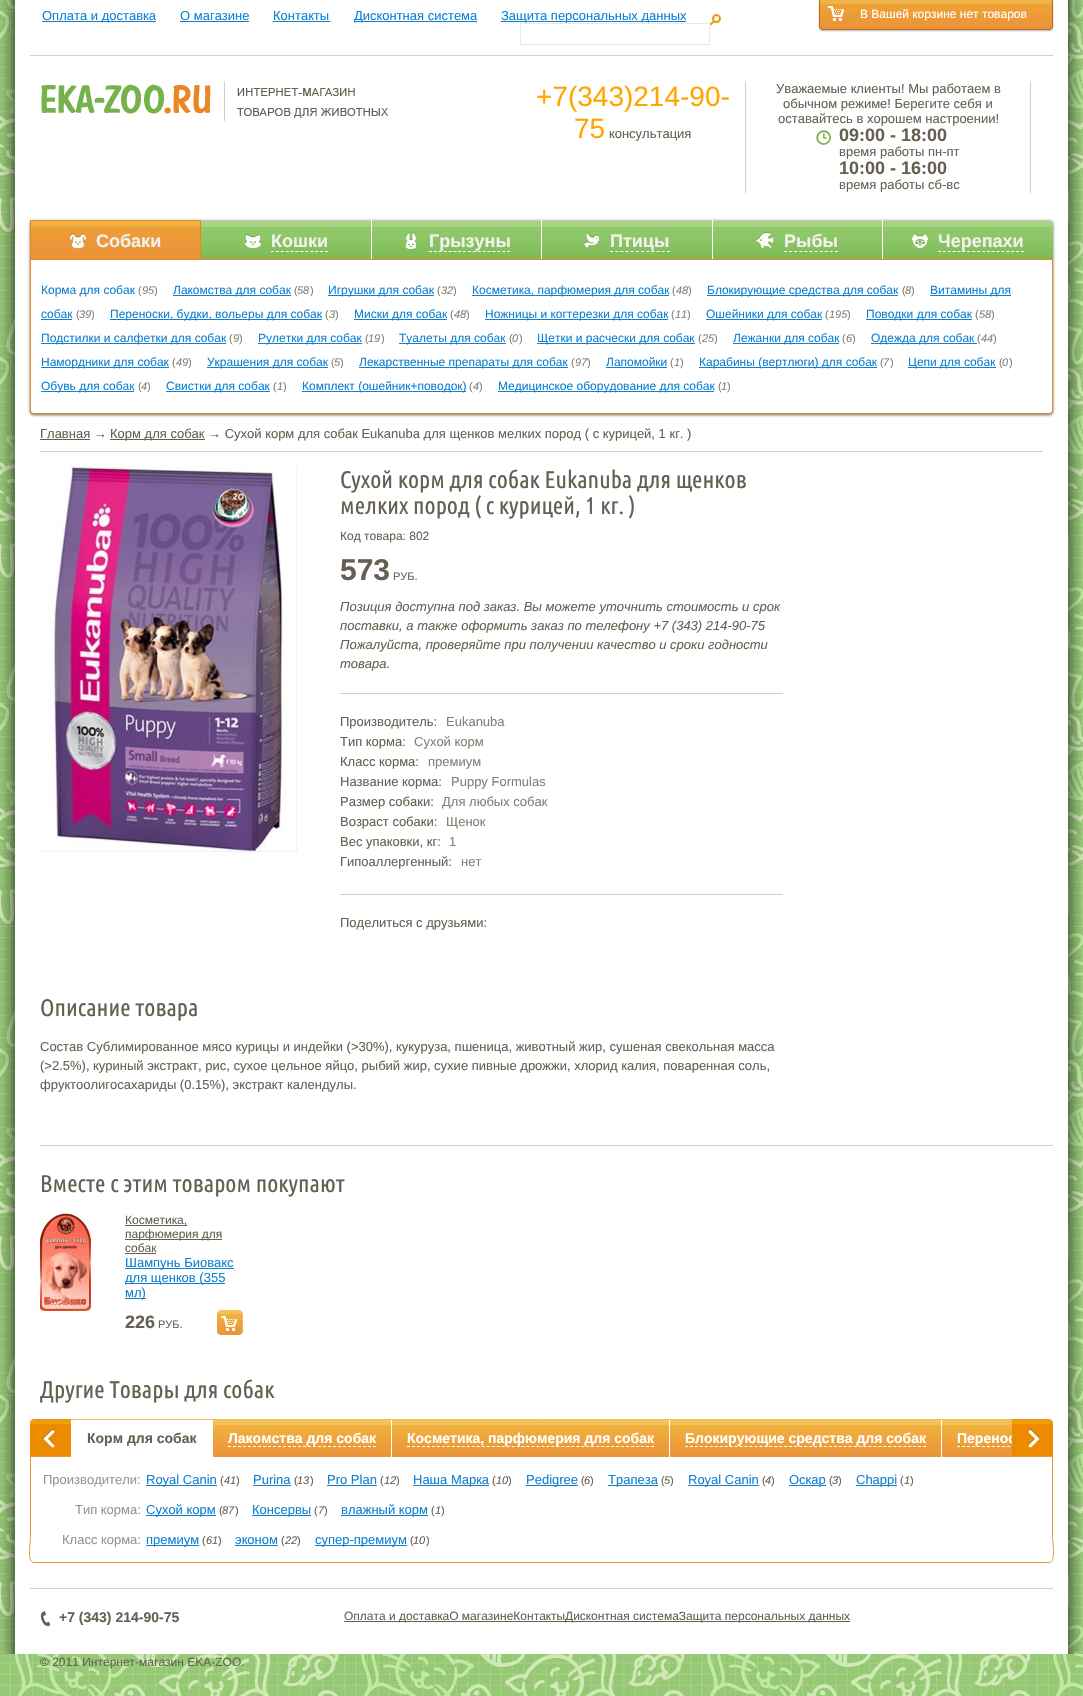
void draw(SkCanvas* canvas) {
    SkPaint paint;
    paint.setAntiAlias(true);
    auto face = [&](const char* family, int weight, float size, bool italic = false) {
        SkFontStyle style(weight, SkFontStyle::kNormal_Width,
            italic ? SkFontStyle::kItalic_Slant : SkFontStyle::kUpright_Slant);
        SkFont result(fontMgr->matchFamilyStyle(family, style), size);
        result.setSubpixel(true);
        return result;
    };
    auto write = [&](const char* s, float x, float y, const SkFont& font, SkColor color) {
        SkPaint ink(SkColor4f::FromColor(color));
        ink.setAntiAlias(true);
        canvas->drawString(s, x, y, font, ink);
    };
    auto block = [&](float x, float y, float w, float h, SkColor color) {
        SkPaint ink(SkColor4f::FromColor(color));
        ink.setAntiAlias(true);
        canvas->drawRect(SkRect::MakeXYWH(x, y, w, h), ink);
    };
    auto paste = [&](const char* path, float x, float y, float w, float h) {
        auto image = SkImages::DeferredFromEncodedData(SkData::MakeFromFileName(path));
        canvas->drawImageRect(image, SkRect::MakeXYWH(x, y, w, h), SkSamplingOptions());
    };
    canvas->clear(SK_ColorWHITE);
    paste("pic1.png", 0, 0, 1083, 1696);
    paste("pic2.png", 0, 0, 15, 1654);
    block(15, 0, 1053, 1654, SK_ColorWHITE);
    block(30, 55, 1023, 1, SkColorSetRGB(211, 208, 194));
    block(42, 21, 114, 1, SkColorSetRGB(16, 128, 209));
    auto kFont1 = face("Liberation Sans", 400, 13);
    write("Оплата и доставка", 42, 20, kFont1, SkColorSetRGB(16, 128, 209));
    write("О магазине", 180, 20, kFont1, SkColorSetRGB(16, 128, 209));
    block(180, 21, 69, 1, SkColorSetRGB(16, 128, 209));
    write("Контакты", 273, 20, kFont1, SkColorSetRGB(16, 128, 209));
    block(273, 21, 57, 1, SkColorSetRGB(16, 128, 209));
    block(354, 21, 123, 1, SkColorSetRGB(16, 128, 209));
    write("Дисконтная система", 354, 20, kFont1, SkColorSetRGB(16, 128, 209));
    block(501, 21, 185, 1, SkColorSetRGB(16, 128, 209));
    write("Защита персональных данных", 501, 20, kFont1, SkColorSetRGB(16, 128, 209));
    paint.setColor(SkColorSetRGB(179, 179, 179));
    paint.setMaskFilter(SkMaskFilter::MakeBlur(kNormal_SkBlurStyle, 1));
    canvas->drawRoundRect(SkRect::MakeXYWH(819, 1, 234, 30), 4, 4, paint);
    paint.setMaskFilter(nullptr);
    paste("pic3.png", 819, 0, 234, 29);
    paint.setColor(SkColorSetRGB(198, 108, 20));
    canvas->drawPath(SkPathBuilder(SkPathFillType::kEvenOdd).moveTo(819, 0).lineTo(1053, 0).lineTo(1053, 26).cubicTo(1053, 28, 1051, 30, 1049, 30).lineTo(823, 30).cubicTo(821, 30, 819, 28, 819, 26).close().moveTo(820, 0).lineTo(1052, 0).lineTo(1052, 26).cubicTo(1052, 28, 1051, 29, 1049, 29).lineTo(823, 29).cubicTo(821, 29, 820, 28, 820, 26).close().detach(), paint);
    paste("pic4.png", 828, 6, 16, 15);
    auto kFont2 = face("Liberation Sans", 400, 12);
    write("В Вашей корзине нет товаров", 860, 18, kFont2, SK_ColorWHITE);
    paint.setStyle(SkPaint::kStroke_Style);
    paint.setStrokeWidth(1);
    paint.setColor(SkColorSetRGB(226, 233, 239));
    canvas->drawRect(SkRect::MakeXYWH(520.5f, 23.5f, 189, 21), paint);
    paste("pic5.png", 709, 14, 12, 12);
    paste("pic6.png", 41, 81, 347, 40);
    auto kFont3 = face("Liberation Sans", 400, 28);
    write("+7(343)214-90-", 536, 106, kFont3, SkColorSetRGB(255, 165, 0));
    write("75", 574, 138, kFont3, SkColorSetRGB(255, 165, 0));
    write("консультация", 609, 138, kFont1, SkColorSetRGB(101, 96, 82));
    block(745, 81, 1, 112, SkColorSetRGB(211, 208, 194));
    write("Уважаемые клиенты! Мы работаем в", 776, 93, kFont1, SkColorSetRGB(101, 96, 82));
    write("обычном режиме! Берегите себя и", 783, 108, kFont1, SkColorSetRGB(101, 96, 82));
    write("оставайтесь в хорошем настроении!", 778, 123, kFont1, SkColorSetRGB(101, 96, 82));
    paste("pic7.png", 816, 130, 15, 15);
    auto kFont4 = face("Liberation Sans", 700, 18);
    write("09:00 - 18:00", 839, 141, kFont4, SkColorSetRGB(101, 96, 82));
    write("время работы пн-пт", 839, 156, kFont1, SkColorSetRGB(101, 96, 82));
    write("10:00 - 16:00", 839, 174, kFont4, SkColorSetRGB(101, 96, 82));
    write("время работы сб-вс", 839, 189, kFont1, SkColorSetRGB(101, 96, 82));
    block(1030, 81, 1, 112, SkColorSetRGB(211, 208, 194));
    paint.setStyle(SkPaint::kFill_Style);
    paint.setColor(SkColorSetRGB(102, 102, 102));
    paint.setMaskFilter(SkMaskFilter::MakeBlur(kNormal_SkBlurStyle, 1.5f));
    canvas->drawRoundRect(SkRect::MakeXYWH(30, 221, 1023, 194), 4, 4, paint);
    paint.setMaskFilter(nullptr);
    paste("pic8.png", 31, 221, 169, 38);
    block(30, 220, 171, 1, SkColorSetRGB(233, 134, 40));
    block(200, 220, 1, 42, SkColorSetRGB(233, 134, 40));
    block(30, 220, 1, 42, SkColorSetRGB(233, 134, 40));
    paste("pic9.png", 70, 233, 16, 16);
    write("Собаки", 96, 247, kFont4, SkColorSetRGB(242, 241, 238));
    paste("pic10.png", 201, 221, 170, 38);
    paste("pic11.png", 245, 234, 16, 14);
    write("Кошки", 271, 247, kFont4, SkColorSetRGB(242, 241, 238));
    paint.setStyle(SkPaint::kStroke_Style);
    paint.setColor(SK_ColorWHITE);
    paint.setPathEffect(SkDashPathEffect::Make({{3, 1.91f}}, 0));
    canvas->drawPath(SkPathBuilder().moveTo(271, 251.5f).lineTo(328, 251.5f).detach(), paint);
    paint.setPathEffect(nullptr);
    paste("pic12.png", 372, 221, 169, 38);
    block(371, 220, 1, 42, SK_ColorWHITE);
    paste("pic13.png", 405, 232, 12, 17);
    write("Грызуны", 429, 247, kFont4, SkColorSetRGB(242, 241, 238));
    paint.setPathEffect(SkDashPathEffect::Make({{3, 1.88f}}, 0));
    canvas->drawPath(SkPathBuilder().moveTo(429, 251.5f).lineTo(510, 251.5f).detach(), paint);
    paint.setPathEffect(nullptr);
    paste("pic10.png", 542, 221, 170, 38);
    block(541, 220, 1, 42, SK_ColorWHITE);
    paste("pic14.png", 584, 232, 16, 16);
    write("Птицы", 610, 247, kFont4, SkColorSetRGB(242, 241, 238));
    paint.setPathEffect(SkDashPathEffect::Make({{3, 2.18f}}, 0));
    canvas->drawPath(SkPathBuilder().moveTo(610, 251.5f).lineTo(670, 251.5f).detach(), paint);
    paint.setPathEffect(nullptr);
    paste("pic12.png", 713, 221, 169, 38);
    block(712, 220, 1, 42, SK_ColorWHITE);
    paste("pic15.png", 756, 232, 18, 17);
    write("Рыбы", 784, 247, kFont4, SkColorSetRGB(242, 241, 238));
    paint.setPathEffect(SkDashPathEffect::Make({{3, 2.1f}}, 0));
    canvas->drawPath(SkPathBuilder().moveTo(784, 251.5f).lineTo(838, 251.5f).detach(), paint);
    paint.setPathEffect(nullptr);
    paste("pic16.png", 883, 221, 170, 38);
    block(882, 220, 1, 42, SK_ColorWHITE);
    paste("pic17.png", 912, 233, 16, 15);
    write("Черепахи", 938, 247, kFont4, SkColorSetRGB(242, 241, 238));
    paint.setPathEffect(SkDashPathEffect::Make({{3, 1.88f}}, 0));
    canvas->drawPath(SkPathBuilder().moveTo(938, 251.5f).lineTo(1024, 251.5f).detach(), paint);
    paint.setPathEffect(nullptr);
    paint.setStyle(SkPaint::kFill_Style);
    canvas->drawPath(SkPathBuilder().moveTo(30.5f, 259.5f).lineTo(1052.5f, 259.5f).lineTo(1052.5f, 410).cubicTo(1052.5f, 412, 1051, 413.5f, 1049, 413.5f).lineTo(34, 413.5f).cubicTo(32, 413.5f, 30.5f, 412, 30.5f, 410).close().detach(), paint);
    paint.setStyle(SkPaint::kStroke_Style);
    paint.setColor(SkColorSetRGB(233, 134, 40));
    canvas->drawPath(SkPathBuilder().moveTo(30.5f, 259.5f).lineTo(1052.5f, 259.5f).lineTo(1052.5f, 410).cubicTo(1052.5f, 412, 1051, 413.5f, 1049, 413.5f).lineTo(34, 413.5f).cubicTo(32, 413.5f, 30.5f, 412, 30.5f, 410).close().detach(), paint);
    write("Корма для собак", 41, 294, kFont2, SkColorSetRGB(16, 128, 209));
    auto kFont5 = face("Liberation Sans", 400, 11);
    write("(", 138, 294, kFont5, SkColorSetRGB(132, 128, 117));
    auto kFont6 = face("Liberation Sans", 400, 11, true);
    write("95", 142, 294, kFont6, SkColorSetRGB(132, 128, 117));
    write(")", 154, 294, kFont5, SkColorSetRGB(132, 128, 117));
    block(173, 295, 118, 1, SkColorSetRGB(16, 128, 209));
    write("Лакомства для собак", 173, 294, kFont2, SkColorSetRGB(16, 128, 209));
    write("(", 294, 294, kFont5, SkColorSetRGB(132, 128, 117));
    write("58", 297, 294, kFont6, SkColorSetRGB(132, 128, 117));
    write(")", 310, 294, kFont5, SkColorSetRGB(132, 128, 117));
    block(328, 295, 106, 1, SkColorSetRGB(16, 128, 209));
    write("Игрушки для собак", 328, 294, kFont2, SkColorSetRGB(16, 128, 209));
    write("(", 437, 294, kFont5, SkColorSetRGB(132, 128, 117));
    write("32", 441, 294, kFont6, SkColorSetRGB(132, 128, 117));
    write(")", 453, 294, kFont5, SkColorSetRGB(132, 128, 117));
    block(472, 295, 197, 1, SkColorSetRGB(16, 128, 209));
    write("Косметика, парфюмерия для собак", 472, 294, kFont2, SkColorSetRGB(16, 128, 209));
    write("(", 672, 294, kFont5, SkColorSetRGB(132, 128, 117));
    write("48", 676, 294, kFont6, SkColorSetRGB(132, 128, 117));
    write(")", 688, 294, kFont5, SkColorSetRGB(132, 128, 117));
    block(707, 295, 191, 1, SkColorSetRGB(16, 128, 209));
    write("Блокирующие средства для собак", 707, 294, kFont2, SkColorSetRGB(16, 128, 209));
    write("(", 902, 294, kFont5, SkColorSetRGB(132, 128, 117));
    write("8", 905, 294, kFont6, SkColorSetRGB(132, 128, 117));
    write(")", 911, 294, kFont5, SkColorSetRGB(132, 128, 117));
    block(930, 295, 81, 1, SkColorSetRGB(16, 128, 209));
    write("Витамины для", 930, 294, kFont2, SkColorSetRGB(16, 128, 209));
    write("собак", 41, 318, kFont2, SkColorSetRGB(16, 128, 209));
    block(41, 319, 31, 1, SkColorSetRGB(16, 128, 209));
    write("(", 76, 318, kFont5, SkColorSetRGB(132, 128, 117));
    write("39", 79, 318, kFont6, SkColorSetRGB(132, 128, 117));
    write(")", 91, 318, kFont5, SkColorSetRGB(132, 128, 117));
    block(110, 319, 212, 1, SkColorSetRGB(16, 128, 209));
    write("Переноски, будки, вольеры для собак", 110, 318, kFont2, SkColorSetRGB(16, 128, 209));
    write("(", 325, 318, kFont5, SkColorSetRGB(132, 128, 117));
    write("3", 329, 318, kFont6, SkColorSetRGB(132, 128, 117));
    write(")", 335, 318, kFont5, SkColorSetRGB(132, 128, 117));
    block(354, 319, 93, 1, SkColorSetRGB(16, 128, 209));
    write("Миски для собак", 354, 318, kFont2, SkColorSetRGB(16, 128, 209));
    write("(", 450, 318, kFont5, SkColorSetRGB(132, 128, 117));
    write("48", 454, 318, kFont6, SkColorSetRGB(132, 128, 117));
    write(")", 466, 318, kFont5, SkColorSetRGB(132, 128, 117));
    block(485, 319, 183, 1, SkColorSetRGB(16, 128, 209));
    write("Ножницы и когтерезки для собак", 485, 318, kFont2, SkColorSetRGB(16, 128, 209));
    write("(", 671, 318, kFont5, SkColorSetRGB(132, 128, 117));
    write("11", 675, 318, kFont6, SkColorSetRGB(132, 128, 117));
    write(")", 687, 318, kFont5, SkColorSetRGB(132, 128, 117));
    block(706, 319, 116, 1, SkColorSetRGB(16, 128, 209));
    write("Ошейники для собак", 706, 318, kFont2, SkColorSetRGB(16, 128, 209));
    write("(", 825, 318, kFont5, SkColorSetRGB(132, 128, 117));
    write("195", 829, 318, kFont6, SkColorSetRGB(132, 128, 117));
    write(")", 847, 318, kFont5, SkColorSetRGB(132, 128, 117));
    block(866, 319, 106, 1, SkColorSetRGB(16, 128, 209));
    write("Поводки для собак", 866, 318, kFont2, SkColorSetRGB(16, 128, 209));
    write("(", 975, 318, kFont5, SkColorSetRGB(132, 128, 117));
    write("58", 979, 318, kFont6, SkColorSetRGB(132, 128, 117));
    write(")", 991, 318, kFont5, SkColorSetRGB(132, 128, 117));
    block(41, 343, 185, 1, SkColorSetRGB(16, 128, 209));
    write("Подстилки и салфетки для собак", 41, 342, kFont2, SkColorSetRGB(16, 128, 209));
    write("(", 229, 342, kFont5, SkColorSetRGB(132, 128, 117));
    write("9", 233, 342, kFont6, SkColorSetRGB(132, 128, 117));
    write(")", 239, 342, kFont5, SkColorSetRGB(132, 128, 117));
    block(258, 343, 104, 1, SkColorSetRGB(16, 128, 209));
    write("Рулетки для собак", 258, 342, kFont2, SkColorSetRGB(16, 128, 209));
    write("(", 365, 342, kFont5, SkColorSetRGB(132, 128, 117));
    write("19", 368, 342, kFont6, SkColorSetRGB(132, 128, 117));
    write(")", 381, 342, kFont5, SkColorSetRGB(132, 128, 117));
    block(399, 343, 107, 1, SkColorSetRGB(16, 128, 209));
    write("Туалеты для собак", 399, 342, kFont2, SkColorSetRGB(16, 128, 209));
    write("(", 509, 342, kFont5, SkColorSetRGB(132, 128, 117));
    write("0", 512, 342, kFont6, SkColorSetRGB(132, 128, 117));
    write(")", 519, 342, kFont5, SkColorSetRGB(132, 128, 117));
    block(537, 343, 158, 1, SkColorSetRGB(16, 128, 209));
    write("Щетки и расчески для собак", 537, 342, kFont2, SkColorSetRGB(16, 128, 209));
    write("(", 698, 342, kFont5, SkColorSetRGB(132, 128, 117));
    write("25", 702, 342, kFont6, SkColorSetRGB(132, 128, 117));
    write(")", 714, 342, kFont5, SkColorSetRGB(132, 128, 117));
    block(733, 343, 106, 1, SkColorSetRGB(16, 128, 209));
    write("Лежанки для собак", 733, 342, kFont2, SkColorSetRGB(16, 128, 209));
    write("(", 842, 342, kFont5, SkColorSetRGB(132, 128, 117));
    write("6", 846, 342, kFont6, SkColorSetRGB(132, 128, 117));
    write(")", 852, 342, kFont5, SkColorSetRGB(132, 128, 117));
    block(871, 343, 106, 1, SkColorSetRGB(16, 128, 209));
    write("Одежда для собак", 871, 342, kFont2, SkColorSetRGB(16, 128, 209));
    write("(", 977, 342, kFont5, SkColorSetRGB(132, 128, 117));
    write("44", 981, 342, kFont6, SkColorSetRGB(132, 128, 117));
    write(")", 993, 342, kFont5, SkColorSetRGB(132, 128, 117));
    block(41, 367, 128, 1, SkColorSetRGB(16, 128, 209));
    write("Намордники для собак", 41, 366, kFont2, SkColorSetRGB(16, 128, 209));
    write("(", 172, 366, kFont5, SkColorSetRGB(132, 128, 117));
    write("49", 176, 366, kFont6, SkColorSetRGB(132, 128, 117));
    write(")", 188, 366, kFont5, SkColorSetRGB(132, 128, 117));
    block(207, 367, 121, 1, SkColorSetRGB(16, 128, 209));
    write("Украшения для собак", 207, 366, kFont2, SkColorSetRGB(16, 128, 209));
    write("(", 331, 366, kFont5, SkColorSetRGB(132, 128, 117));
    write("5", 334, 366, kFont6, SkColorSetRGB(132, 128, 117));
    write(")", 340, 366, kFont5, SkColorSetRGB(132, 128, 117));
    block(359, 367, 209, 1, SkColorSetRGB(16, 128, 209));
    write("Лекарственные препараты для собак", 359, 366, kFont2, SkColorSetRGB(16, 128, 209));
    write("(", 571, 366, kFont5, SkColorSetRGB(132, 128, 117));
    write("97", 575, 366, kFont6, SkColorSetRGB(132, 128, 117));
    write("Лапомойки", 606, 366, kFont2, SkColorSetRGB(16, 128, 209));
    block(606, 367, 61, 1, SkColorSetRGB(16, 128, 209));
    block(699, 367, 178, 1, SkColorSetRGB(16, 128, 209));
    write("Карабины (вертлюги) для собак", 699, 366, kFont2, SkColorSetRGB(16, 128, 209));
    block(908, 367, 88, 1, SkColorSetRGB(16, 128, 209));
    write("Цепи для собак", 908, 366, kFont2, SkColorSetRGB(16, 128, 209));
    write(")", 587, 366, kFont5, SkColorSetRGB(132, 128, 117));
    write("(", 670, 366, kFont5, SkColorSetRGB(132, 128, 117));
    write("1", 674, 366, kFont6, SkColorSetRGB(132, 128, 117));
    write(")", 680, 366, kFont5, SkColorSetRGB(132, 128, 117));
    write("(", 880, 366, kFont5, SkColorSetRGB(132, 128, 117));
    write("7", 883, 366, kFont6, SkColorSetRGB(132, 128, 117));
    write(")", 890, 366, kFont5, SkColorSetRGB(132, 128, 117));
    write("(", 999, 366, kFont5, SkColorSetRGB(132, 128, 117));
    write("0", 1002, 366, kFont6, SkColorSetRGB(132, 128, 117));
    write(")", 1009, 366, kFont5, SkColorSetRGB(132, 128, 117));
    block(41, 391, 93, 1, SkColorSetRGB(16, 128, 209));
    write("Обувь для собак", 41, 390, kFont2, SkColorSetRGB(16, 128, 209));
    write("(", 138, 390, kFont5, SkColorSetRGB(132, 128, 117));
    write("4", 141, 390, kFont6, SkColorSetRGB(132, 128, 117));
    write(")", 147, 390, kFont5, SkColorSetRGB(132, 128, 117));
    block(166, 391, 104, 1, SkColorSetRGB(16, 128, 209));
    write("Свистки для собак", 166, 390, kFont2, SkColorSetRGB(16, 128, 209));
    write("(", 273, 390, kFont5, SkColorSetRGB(132, 128, 117));
    write("1", 277, 390, kFont6, SkColorSetRGB(132, 128, 117));
    write(")", 283, 390, kFont5, SkColorSetRGB(132, 128, 117));
    block(302, 391, 164, 1, SkColorSetRGB(16, 128, 209));
    write("Комплект (ошейник+поводок)", 302, 390, kFont2, SkColorSetRGB(16, 128, 209));
    write("(", 469, 390, kFont5, SkColorSetRGB(132, 128, 117));
    write("4", 473, 390, kFont6, SkColorSetRGB(132, 128, 117));
    write(")", 479, 390, kFont5, SkColorSetRGB(132, 128, 117));
    block(498, 391, 216, 1, SkColorSetRGB(16, 128, 209));
    write("Медицинское оборудование для собак", 498, 390, kFont2, SkColorSetRGB(16, 128, 209));
    write("(", 718, 390, kFont5, SkColorSetRGB(132, 128, 117));
    write("1", 721, 390, kFont6, SkColorSetRGB(132, 128, 117));
    write(")", 727, 390, kFont5, SkColorSetRGB(132, 128, 117));
    block(40, 451, 1003, 1, SkColorSetRGB(211, 208, 194));
    write("Главная →", 40, 438, kFont1, SkColorSetRGB(101, 96, 82));
    block(40, 439, 50, 1, SkColorSetRGB(101, 96, 82));
    block(110, 439, 95, 1, SkColorSetRGB(101, 96, 82));
    write("Корм для собак → Сухой корм для собак Eukanuba для щенков мелких пород ( с курицей, 1 кг. )", 110, 438, kFont1, SkColorSetRGB(101, 96, 82));
    paste("pic18.png", 40, 467, 257, 385);
    block(340, 693, 443, 1, SkColorSetRGB(211, 208, 194));
    auto kFont7 = face("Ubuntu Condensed", 400, 24);
    write("Сухой корм для собак Eukanuba для щенков", 340, 488, kFont7, SkColorSetRGB(101, 96, 82));
    write("мелких пород ( с курицей, 1 кг. )", 340, 514, kFont7, SkColorSetRGB(101, 96, 82));
    write("Код товара: 802", 340, 540, kFont2, SkColorSetRGB(101, 96, 82));
    auto kFont8 = face("Liberation Sans", 700, 30);
    write("573", 340, 580, kFont8, SkColorSetRGB(101, 96, 82));
    write("РУБ.", 393, 580, kFont5, SkColorSetRGB(101, 96, 82));
    auto kFont9 = face("Liberation Sans", 400, 13, true);
    write("Позиция доступна под заказ. Вы можете уточнить стоимость и срок", 340, 611, kFont9, SkColorSetRGB(101, 96, 82));
    write("поставки, а также оформить заказ по телефону +7 (343) 214-90-75", 340, 630, kFont9, SkColorSetRGB(101, 96, 82));
    write("Пожалуйста, проверяйте при получении качество и сроки годности", 340, 649, kFont9, SkColorSetRGB(101, 96, 82));
    write("товара.", 340, 668, kFont9, SkColorSetRGB(101, 96, 82));
    block(340, 894, 443, 1, SkColorSetRGB(211, 208, 194));
    write("Производитель:", 340, 726, kFont1, SkColorSetRGB(101, 96, 82));
    write("Eukanuba", 446, 726, kFont1, SkColorSetRGB(132, 128, 117));
    write("Тип корма:", 340, 746, kFont1, SkColorSetRGB(101, 96, 82));
    write("Сухой корм", 414, 746, kFont1, SkColorSetRGB(132, 128, 117));
    write("Класс корма:", 340, 766, kFont1, SkColorSetRGB(101, 96, 82));
    write("премиум", 428, 766, kFont1, SkColorSetRGB(132, 128, 117));
    write("Название корма:", 340, 786, kFont1, SkColorSetRGB(101, 96, 82));
    write("Puppy Formulas", 451, 786, kFont1, SkColorSetRGB(132, 128, 117));
    write("Размер собаки:", 340, 806, kFont1, SkColorSetRGB(101, 96, 82));
    write("Для любых собак", 442, 806, kFont1, SkColorSetRGB(132, 128, 117));
    write("Возраст собаки:", 340, 826, kFont1, SkColorSetRGB(101, 96, 82));
    write("Щенок", 446, 826, kFont1, SkColorSetRGB(132, 128, 117));
    write("Вес упаковки, кг:", 340, 846, kFont1, SkColorSetRGB(101, 96, 82));
    write("1", 449, 846, kFont1, SkColorSetRGB(132, 128, 117));
    write("Гипоаллергенный:", 340, 866, kFont1, SkColorSetRGB(101, 96, 82));
    write("нет", 461, 866, kFont1, SkColorSetRGB(132, 128, 117));
    write("Поделиться с друзьями:", 340, 927, kFont1, SkColorSetRGB(101, 96, 82));
    write("Описание товара", 40, 1016, kFont7, SkColorSetRGB(101, 96, 82));
    write("Состав Сублимированное мясо курицы и индейки (>30%), кукуруза, пшеница, животный жир, сушеная свекольная масса", 40, 1051, kFont1, SkColorSetRGB(101, 96, 82));
    write("(>2.5%), куриный экстракт, рис, сухое цельное яйцо, рыбий жир, сухие пивные дрожжи, хлорид калия, поваренная соль,", 40, 1070, kFont1, SkColorSetRGB(101, 96, 82));
    write("фруктоолигосахариды (0.15%), экстракт календулы.", 40, 1089, kFont1, SkColorSetRGB(101, 96, 82));
    block(40, 1145, 1013, 1, SkColorSetRGB(211, 208, 194));
    write("Вместе с этим товаром покупают", 40, 1192, kFont7, SkColorSetRGB(101, 96, 82));
    paste("pic19.png", 40, 1213, 51, 98);
    block(125, 1225, 62, 1, SkColorSetRGB(101, 96, 82));
    write("Косметика,", 125, 1224, kFont2, SkColorSetRGB(101, 96, 82));
    block(125, 1239, 97, 1, SkColorSetRGB(101, 96, 82));
    write("парфюмерия для", 125, 1238, kFont2, SkColorSetRGB(101, 96, 82));
    write("собак", 125, 1252, kFont2, SkColorSetRGB(101, 96, 82));
    block(125, 1253, 31, 1, SkColorSetRGB(101, 96, 82));
    block(125, 1268, 109, 1, SkColorSetRGB(16, 128, 209));
    write("Шампунь Биовакс", 125, 1267, kFont1, SkColorSetRGB(16, 128, 209));
    block(125, 1283, 100, 1, SkColorSetRGB(16, 128, 209));
    write("для щенков (355", 125, 1282, kFont1, SkColorSetRGB(16, 128, 209));
    block(125, 1298, 21, 1, SkColorSetRGB(16, 128, 209));
    write("мл)", 125, 1297, kFont1, SkColorSetRGB(16, 128, 209));
    write("226", 125, 1328, kFont4, SkColorSetRGB(101, 96, 82));
    write("РУБ.", 158, 1328, kFont5, SkColorSetRGB(101, 96, 82));
    paste("pic20.png", 217, 1310, 26, 25);
    write("Другие Товары для собак", 40, 1398, kFont7, SkColorSetRGB(101, 96, 82));
    paint.setColor(SkColorSetRGB(244, 193, 88));
    canvas->drawPath(SkPathBuilder().moveTo(31.5f, 1420.5f).lineTo(34, 1419.5f).lineTo(1049, 1419.5f).lineTo(1051.5f, 1420.5f).detach(), paint);
    paint.setColor(SkColorSetRGB(235, 149, 58));
    canvas->drawPath(SkPathBuilder().moveTo(1051.5f, 1420.5f).lineTo(1052.5f, 1423).lineTo(1052.5f, 1536.5f).cubicTo(1052.5f, 1542, 1056.5f, 1562.5f, 1049, 1562.5f).lineTo(34, 1562.5f).cubicTo(26.5f, 1562.5f, 30.5f, 1542, 30.5f, 1536.5f).lineTo(30.5f, 1423).lineTo(31.5f, 1420.5f).detach(), paint);
    paste("pic21.png", 30, 1419, 41, 38);
    auto kFont10 = face("Liberation Sans", 700, 14);
    write("Корм для собак", 87, 1443, kFont10, SkColorSetRGB(101, 96, 82));
    paste("pic22.png", 213, 1420, 178, 37);
    write("Лакомства для собак", 228, 1443, kFont10, SK_ColorWHITE);
    paint.setColor(SK_ColorWHITE);
    paint.setPathEffect(SkDashPathEffect::Make({{3, 2}}, 0));
    canvas->drawPath(SkPathBuilder().moveTo(228, 1446.5f).lineTo(376, 1446.5f).detach(), paint);
    paint.setPathEffect(nullptr);
    paste("pic23.png", 392, 1420, 277, 37);
    write("Косметика, парфюмерия для собак", 407, 1443, kFont10, SK_ColorWHITE);
    paint.setPathEffect(SkDashPathEffect::Make({{3, 1.98f}}, 0));
    canvas->drawPath(SkPathBuilder().moveTo(407, 1446.5f).lineTo(654, 1446.5f).detach(), paint);
    paint.setPathEffect(nullptr);
    paste("pic24.png", 670, 1420, 271, 37);
    write("Блокирующие средства для собак", 685, 1443, kFont10, SK_ColorWHITE);
    paint.setPathEffect(SkDashPathEffect::Make({{3, 1.96f}}, 0));
    canvas->drawPath(SkPathBuilder().moveTo(685, 1446.5f).lineTo(926, 1446.5f).detach(), paint);
    paint.setPathEffect(nullptr);
    paste("pic25.png", 942, 1420, 70, 37);
    canvas->save();
    canvas->clipRect(SkRect::MakeXYWH(71, 1420, 941, 37));
    write("Перенос", 957, 1443, kFont10, SK_ColorWHITE);
    paint.setPathEffect(SkDashPathEffect::Make({{3, 1.98f}}, 0));
    canvas->drawPath(SkPathBuilder().moveTo(957, 1446.5f).lineTo(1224, 1446.5f).detach(), paint);
    paint.setPathEffect(nullptr);
    canvas->restore();
    paste("pic26.png", 1012, 1419, 41, 38);
    write("Производители:", 43, 1484, kFont1, SkColorSetRGB(152, 149, 140));
    block(146, 1485, 71, 1, SkColorSetRGB(16, 128, 209));
    write("Royal Canin", 146, 1484, kFont1, SkColorSetRGB(16, 128, 209));
    write("(", 220, 1484, kFont5, SkColorSetRGB(101, 96, 82));
    write("41", 224, 1484, kFont6, SkColorSetRGB(101, 96, 82));
    write(")", 236, 1484, kFont5, SkColorSetRGB(101, 96, 82));
    write("Purina", 253, 1484, kFont1, SkColorSetRGB(16, 128, 209));
    write("(", 294, 1484, kFont5, SkColorSetRGB(101, 96, 82));
    block(253, 1485, 38, 1, SkColorSetRGB(16, 128, 209));
    write("13", 297, 1484, kFont6, SkColorSetRGB(101, 96, 82));
    write(")", 310, 1484, kFont5, SkColorSetRGB(101, 96, 82));
    write("Pro Plan", 327, 1484, kFont1, SkColorSetRGB(16, 128, 209));
    write("(", 380, 1484, kFont5, SkColorSetRGB(101, 96, 82));
    block(327, 1485, 50, 1, SkColorSetRGB(16, 128, 209));
    write("12", 384, 1484, kFont6, SkColorSetRGB(101, 96, 82));
    write(")", 396, 1484, kFont5, SkColorSetRGB(101, 96, 82));
    block(413, 1485, 76, 1, SkColorSetRGB(16, 128, 209));
    write("Наша Марка", 413, 1484, kFont1, SkColorSetRGB(16, 128, 209));
    write("(", 492, 1484, kFont5, SkColorSetRGB(101, 96, 82));
    write("10", 496, 1484, kFont6, SkColorSetRGB(101, 96, 82));
    write(")", 508, 1484, kFont5, SkColorSetRGB(101, 96, 82));
    block(526, 1485, 52, 1, SkColorSetRGB(16, 128, 209));
    write("Pedigree", 526, 1484, kFont1, SkColorSetRGB(16, 128, 209));
    write("(", 581, 1484, kFont5, SkColorSetRGB(101, 96, 82));
    write("6", 584, 1484, kFont6, SkColorSetRGB(101, 96, 82));
    write(")", 590, 1484, kFont5, SkColorSetRGB(101, 96, 82));
    block(608, 1485, 50, 1, SkColorSetRGB(16, 128, 209));
    write("Трапеза", 608, 1484, kFont1, SkColorSetRGB(16, 128, 209));
    write("(", 661, 1484, kFont5, SkColorSetRGB(101, 96, 82));
    write("5", 664, 1484, kFont6, SkColorSetRGB(101, 96, 82));
    write(")", 670, 1484, kFont5, SkColorSetRGB(101, 96, 82));
    block(688, 1485, 71, 1, SkColorSetRGB(16, 128, 209));
    write("Royal Canin", 688, 1484, kFont1, SkColorSetRGB(16, 128, 209));
    write("(", 762, 1484, kFont5, SkColorSetRGB(101, 96, 82));
    write("4", 765, 1484, kFont6, SkColorSetRGB(101, 96, 82));
    write(")", 771, 1484, kFont5, SkColorSetRGB(101, 96, 82));
    block(789, 1485, 37, 1, SkColorSetRGB(16, 128, 209));
    write("Оскар", 789, 1484, kFont1, SkColorSetRGB(16, 128, 209));
    write("(", 829, 1484, kFont5, SkColorSetRGB(101, 96, 82));
    write("3", 832, 1484, kFont6, SkColorSetRGB(101, 96, 82));
    write(")", 838, 1484, kFont5, SkColorSetRGB(101, 96, 82));
    block(856, 1485, 41, 1, SkColorSetRGB(16, 128, 209));
    write("Chappi", 856, 1484, kFont1, SkColorSetRGB(16, 128, 209));
    write("(", 900, 1484, kFont5, SkColorSetRGB(101, 96, 82));
    write("1", 904, 1484, kFont6, SkColorSetRGB(101, 96, 82));
    write(")", 910, 1484, kFont5, SkColorSetRGB(101, 96, 82));
    write("Тип корма:", 75, 1514, kFont1, SkColorSetRGB(152, 149, 140));
    block(146, 1515, 70, 1, SkColorSetRGB(16, 128, 209));
    write("Сухой корм", 146, 1514, kFont1, SkColorSetRGB(16, 128, 209));
    write("(", 219, 1514, kFont5, SkColorSetRGB(101, 96, 82));
    write("87", 222, 1514, kFont6, SkColorSetRGB(101, 96, 82));
    write(")", 235, 1514, kFont5, SkColorSetRGB(101, 96, 82));
    block(252, 1515, 59, 1, SkColorSetRGB(16, 128, 209));
    write("Консервы", 252, 1514, kFont1, SkColorSetRGB(16, 128, 209));
    write("(", 314, 1514, kFont5, SkColorSetRGB(101, 96, 82));
    write("7", 318, 1514, kFont6, SkColorSetRGB(101, 96, 82));
    write(")", 324, 1514, kFont5, SkColorSetRGB(101, 96, 82));
    block(341, 1515, 87, 1, SkColorSetRGB(16, 128, 209));
    write("влажный корм", 341, 1514, kFont1, SkColorSetRGB(16, 128, 209));
    write("(", 431, 1514, kFont5, SkColorSetRGB(101, 96, 82));
    write("1", 435, 1514, kFont6, SkColorSetRGB(101, 96, 82));
    write(")", 441, 1514, kFont5, SkColorSetRGB(101, 96, 82));
    write("Класс корма:", 62, 1544, kFont1, SkColorSetRGB(152, 149, 140));
    block(146, 1545, 53, 1, SkColorSetRGB(16, 128, 209));
    write("премиум", 146, 1544, kFont1, SkColorSetRGB(16, 128, 209));
    write("(", 202, 1544, kFont5, SkColorSetRGB(101, 96, 82));
    write("61", 206, 1544, kFont6, SkColorSetRGB(101, 96, 82));
    write(")", 218, 1544, kFont5, SkColorSetRGB(101, 96, 82));
    write("эконом", 235, 1544, kFont1, SkColorSetRGB(16, 128, 209));
    block(235, 1545, 43, 1, SkColorSetRGB(16, 128, 209));
    write("(", 281, 1544, kFont5, SkColorSetRGB(101, 96, 82));
    write("22", 285, 1544, kFont6, SkColorSetRGB(101, 96, 82));
    write(")", 297, 1544, kFont5, SkColorSetRGB(101, 96, 82));
    block(315, 1545, 92, 1, SkColorSetRGB(16, 128, 209));
    write("супер-премиум", 315, 1544, kFont1, SkColorSetRGB(16, 128, 209));
    write("(", 410, 1544, kFont5, SkColorSetRGB(101, 96, 82));
    write("10", 413, 1544, kFont6, SkColorSetRGB(101, 96, 82));
    write(")", 426, 1544, kFont5, SkColorSetRGB(101, 96, 82));
    block(30, 1588, 1023, 1, SkColorSetRGB(211, 208, 194));
    paste("pic27.png", 40, 1611, 10, 15);
    write("+7 (343) 214-90-75", 59, 1622, kFont10, SkColorSetRGB(101, 96, 82));
    block(344, 1621, 105, 1, SkColorSetRGB(101, 96, 82));
    write("Оплата и доставкаО магазинеКонтакты", 344, 1620, kFont2, SkColorSetRGB(101, 96, 82));
    block(449, 1621, 401, 1, SkColorSetRGB(101, 96, 82));
    write("Дисконтная системаЗащита персональных данных", 565, 1620, kFont2, SkColorSetRGB(101, 96, 82));
    write("© 2011 Интернет-магазин EKА-ZOO.", 40, 1666, kFont2, SkColorSetRGB(101, 96, 82));
    paste("pic28.png", 1068, 0, 15, 1654);
}
